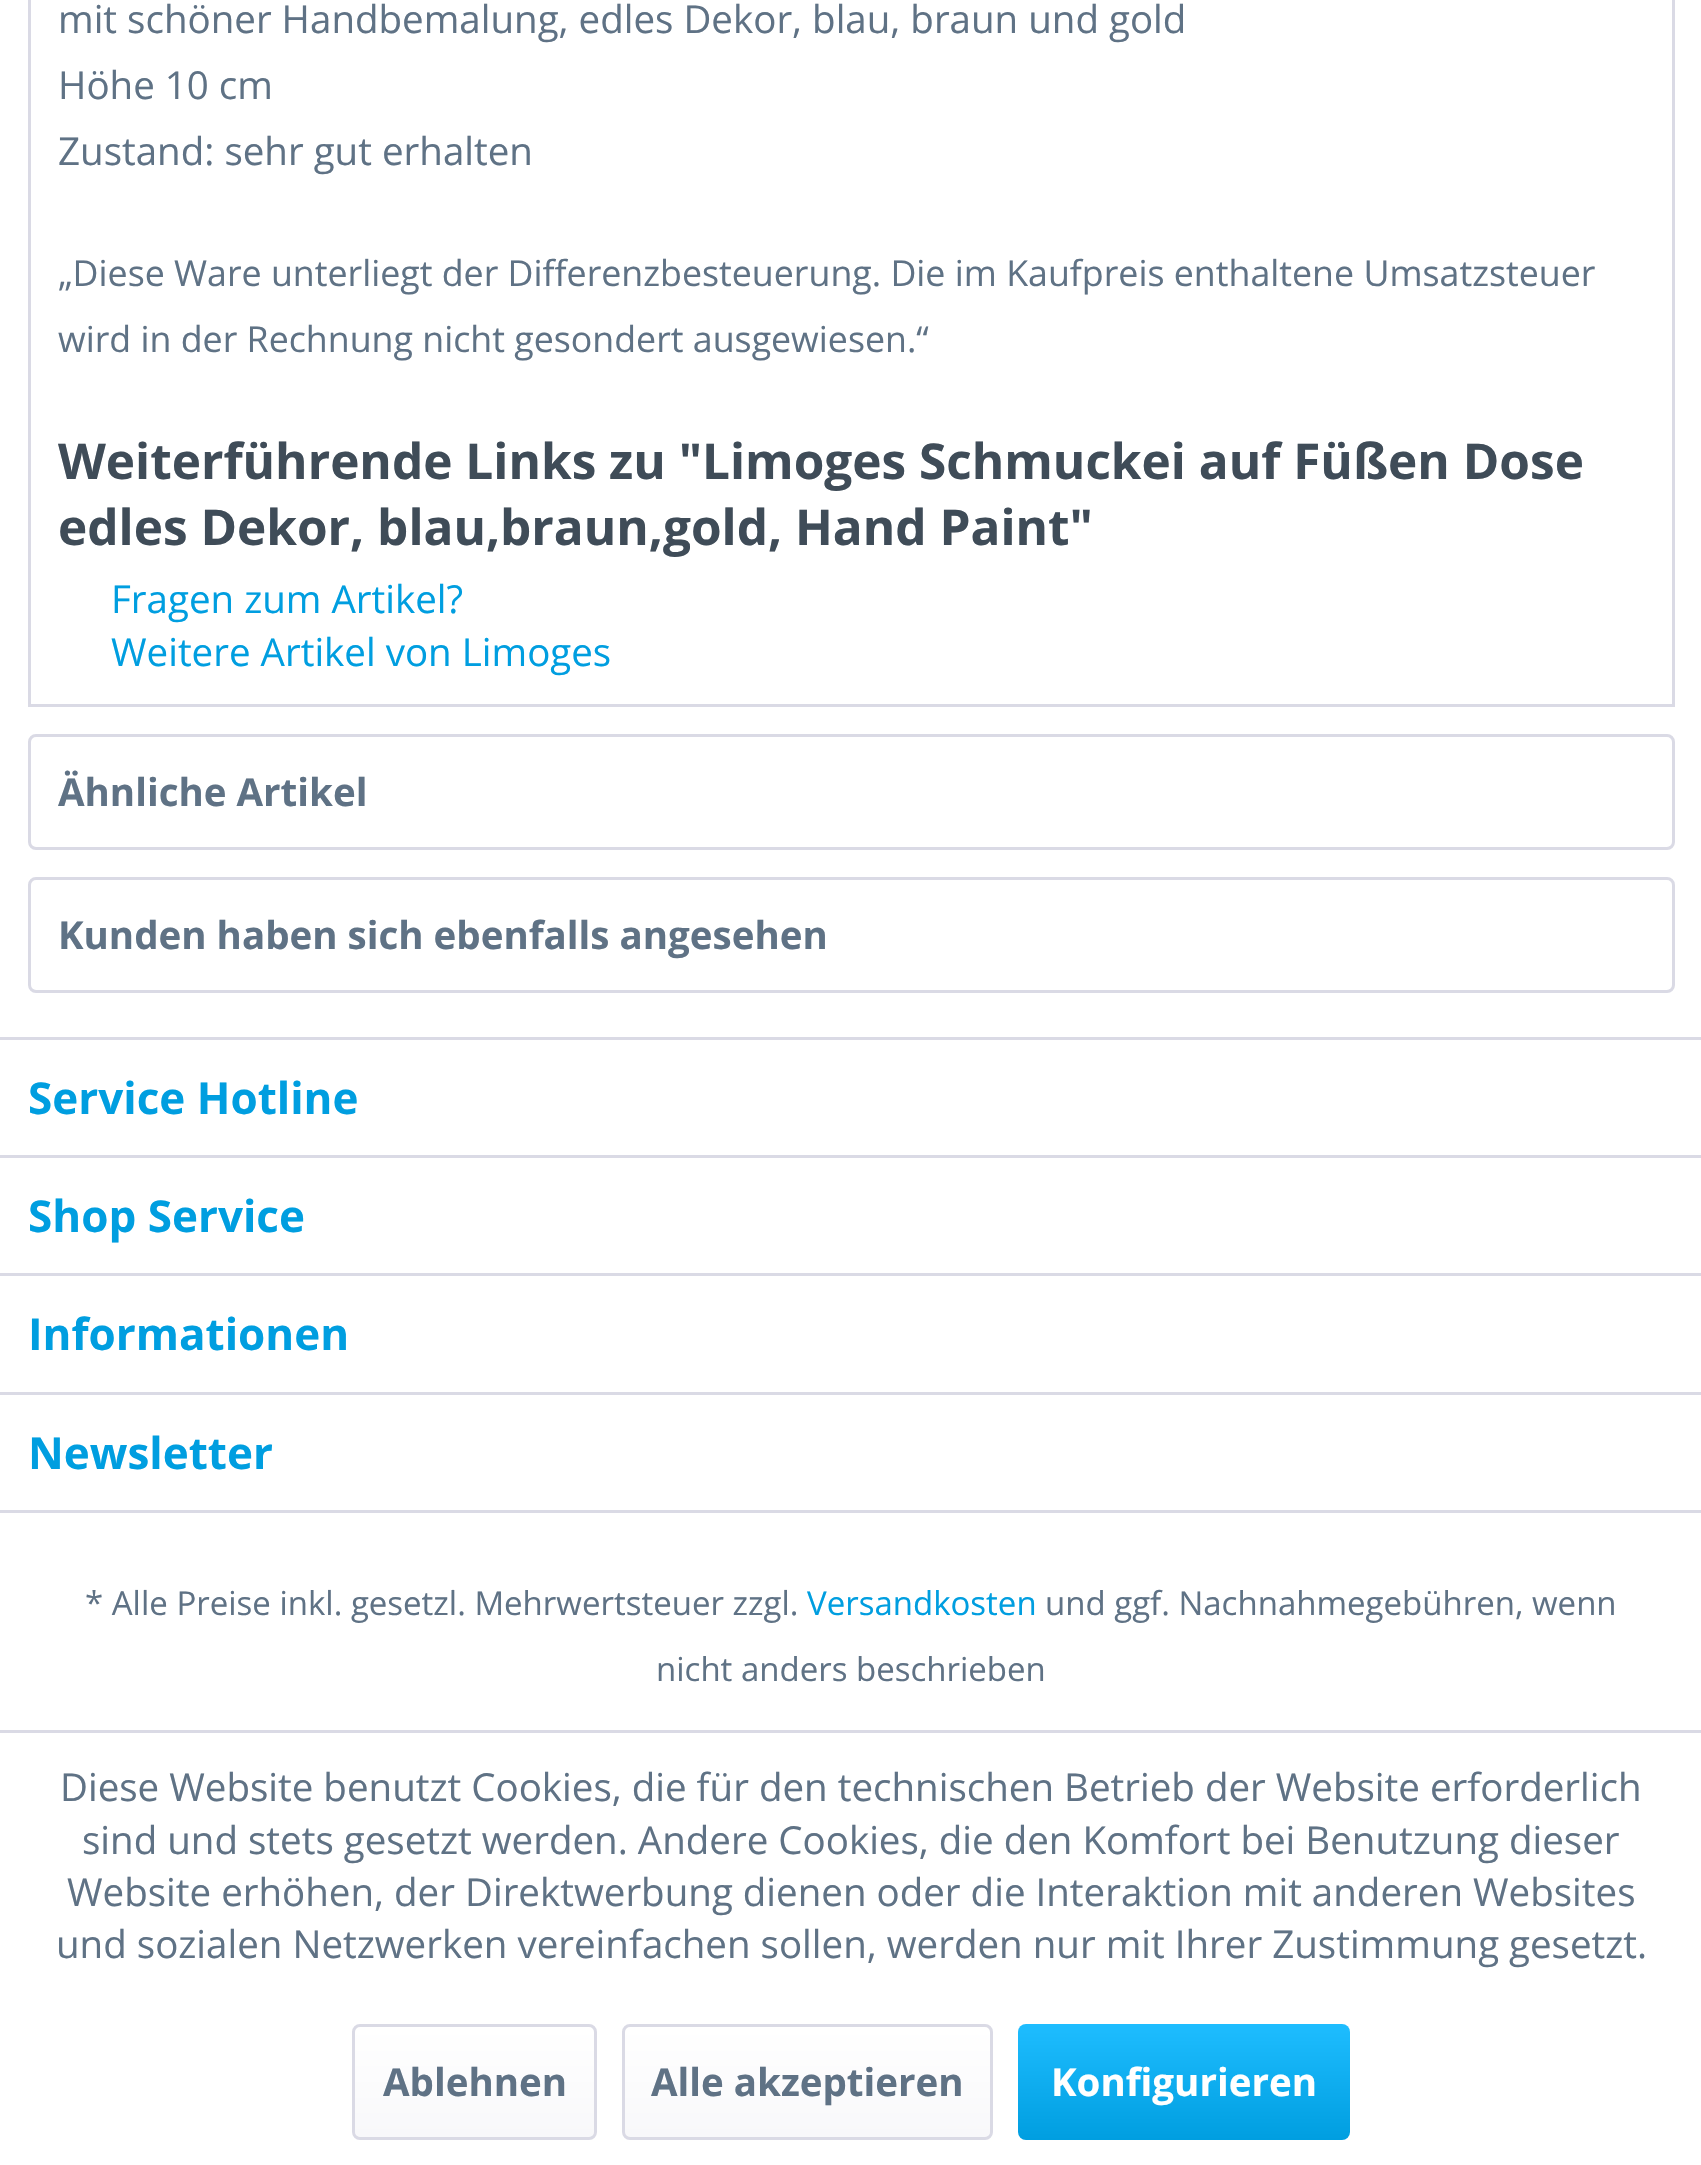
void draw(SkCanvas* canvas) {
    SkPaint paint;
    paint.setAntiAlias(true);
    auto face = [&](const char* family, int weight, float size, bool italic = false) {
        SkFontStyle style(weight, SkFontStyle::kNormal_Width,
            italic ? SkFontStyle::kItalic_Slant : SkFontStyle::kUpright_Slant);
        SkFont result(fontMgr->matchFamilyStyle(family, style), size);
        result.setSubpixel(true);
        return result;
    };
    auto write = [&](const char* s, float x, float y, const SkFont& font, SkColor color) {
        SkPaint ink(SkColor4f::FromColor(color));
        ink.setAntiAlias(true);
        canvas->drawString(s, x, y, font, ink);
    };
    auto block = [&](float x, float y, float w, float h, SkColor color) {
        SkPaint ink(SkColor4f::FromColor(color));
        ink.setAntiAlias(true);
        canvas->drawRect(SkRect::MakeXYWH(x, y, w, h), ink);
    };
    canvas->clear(SK_ColorWHITE);
    paint.setStyle(SkPaint::kStroke_Style);
    paint.setStrokeWidth(3);
    paint.setColor(SkColorSetRGB(218, 218, 229));
    canvas->drawRect(SkRect::MakeXYWH(29.5f, -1.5f, 1644, 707), paint);
    auto kFont1 = face("Open Sans", 400, 38.5f);
    write("mit schöner Handbemalung, edles Dekor, blau, braun und gold", 58, 33, kFont1, SkColorSetRGB(95, 114, 133));
    write("Höhe 10 cm", 58, 99, kFont1, SkColorSetRGB(95, 114, 133));
    write("Zustand: sehr gut erhalten", 58, 165, kFont1, SkColorSetRGB(95, 114, 133));
    auto kFont2 = face("Open Sans", 400, 35.75f);
    write("„Diese Ware unterliegt der Differenzbesteuerung. Die im Kaufpreis enthaltene Umsatzsteuer", 58, 286, kFont2, SkColorSetRGB(95, 114, 133));
    write("wird in der Rechnung nicht gesondert ausgewiesen.“", 58, 352, kFont2, SkColorSetRGB(95, 114, 133));
    auto kFont3 = face("Open Sans", 700, 49.5f);
    write("Weiterführende Links zu \"Limoges Schmuckei auf Füßen Dose", 58, 479, kFont3, SkColorSetRGB(63, 76, 88));
    write("edles Dekor, blau,braun,gold, Hand Paint\"", 58, 545, kFont3, SkColorSetRGB(63, 76, 88));
    write("Fragen zum Artikel?", 111, 613, kFont1, SkColorSetRGB(0, 158, 224));
    write("Weitere Artikel von Limoges", 111, 666, kFont1, SkColorSetRGB(0, 158, 224));
    canvas->drawRoundRect(SkRect::MakeXYWH(29.5f, 735.5f, 1644, 113), 6.5f, 6.5f, paint);
    auto kFont4 = face("Open Sans", 700, 38.5f);
    write("Ähnliche Artikel", 58, 806, kFont4, SkColorSetRGB(95, 114, 133));
    canvas->drawRoundRect(SkRect::MakeXYWH(29.5f, 878.5f, 1644, 113), 6.5f, 6.5f, paint);
    write("Kunden haben sich ebenfalls angesehen", 58, 949, kFont4, SkColorSetRGB(95, 114, 133));
    block(0, 1037, 1701, 3, SkColorSetRGB(218, 218, 229));
    auto kFont5 = face("Open Sans", 700, 44);
    write("Service Hotline", 28, 1114, kFont5, SkColorSetRGB(0, 158, 224));
    block(0, 1155, 1701, 3, SkColorSetRGB(218, 218, 229));
    write("Shop Service", 28, 1232, kFont5, SkColorSetRGB(0, 158, 224));
    block(0, 1273, 1701, 3, SkColorSetRGB(218, 218, 229));
    write("Informationen", 28, 1350, kFont5, SkColorSetRGB(0, 158, 224));
    block(0, 1392, 1701, 3, SkColorSetRGB(218, 218, 229));
    block(0, 1510, 1701, 3, SkColorSetRGB(218, 218, 229));
    write("Newsletter", 28, 1469, kFont5, SkColorSetRGB(0, 158, 224));
    auto kFont6 = face("Open Sans", 400, 33);
    write("* Alle Preise inkl. gesetzl. Mehrwertsteuer zzgl.", 85, 1615, kFont6, SkColorSetRGB(95, 114, 133));
    write("Versandkosten", 807, 1615, kFont6, SkColorSetRGB(0, 158, 224));
    write("und ggf. Nachnahmegebühren, wenn", 1045, 1615, kFont6, SkColorSetRGB(95, 114, 133));
    write("nicht anders beschrieben", 656, 1681, kFont6, SkColorSetRGB(95, 114, 133));
    block(0, 1730, 1701, 3, SkColorSetRGB(218, 218, 229));
    write("Diese Website benutzt Cookies, die für den technischen Betrieb der Website erforderlich", 60, 1801, kFont1, SkColorSetRGB(95, 114, 133));
    write("sind und stets gesetzt werden. Andere Cookies, die den Komfort bei Benutzung dieser", 82, 1854, kFont1, SkColorSetRGB(95, 114, 133));
    write("Website erhöhen, der Direktwerbung dienen oder die Interaktion mit anderen Websites", 67, 1906, kFont1, SkColorSetRGB(95, 114, 133));
    write("und sozialen Netzwerken vereinfachen sollen, werden nur mit Ihrer Zustimmung gesetzt.", 56, 1958, kFont1, SkColorSetRGB(95, 114, 133));
    paint.setStyle(SkPaint::kFill_Style);
    {
        const SkColor colors[] = {SK_ColorWHITE, SkColorSetRGB(248, 248, 250)};
        const float stops[] = {0, 1};
        const SkPoint ends[] = {{474, 2027}, {474, 2137}};
        paint.setShader(SkGradientShader::MakeLinear(ends, colors, stops, 2, SkTileMode::kClamp));
        paint.setAlpha(255);
    }
    canvas->drawRoundRect(SkRect::MakeXYWH(355, 2027, 239, 110), 6, 6, paint);
    paint.setStyle(SkPaint::kStroke_Style);
    paint.setShader(nullptr);
    paint.setColor(SkColorSetRGB(218, 218, 229));
    canvas->drawRoundRect(SkRect::MakeXYWH(353.5f, 2025.5f, 242, 113), 6.5f, 6.5f, paint);
    write("Ablehnen", 383, 2096, kFont4, SkColorSetRGB(95, 114, 133));
    paint.setStyle(SkPaint::kFill_Style);
    {
        const SkColor colors[] = {SK_ColorWHITE, SkColorSetRGB(248, 248, 250)};
        const float stops[] = {0, 1};
        const SkPoint ends[] = {{807, 2027}, {807, 2137}};
        paint.setShader(SkGradientShader::MakeLinear(ends, colors, stops, 2, SkTileMode::kClamp));
        paint.setAlpha(255);
    }
    canvas->drawRoundRect(SkRect::MakeXYWH(624, 2027, 366, 110), 6, 6, paint);
    paint.setStyle(SkPaint::kStroke_Style);
    paint.setShader(nullptr);
    paint.setColor(SkColorSetRGB(218, 218, 229));
    canvas->drawRoundRect(SkRect::MakeXYWH(623.5f, 2025.5f, 368, 113), 6.5f, 6.5f, paint);
    write("Alle akzeptieren", 651, 2096, kFont4, SkColorSetRGB(95, 114, 133));
    paint.setStyle(SkPaint::kFill_Style);
    {
        const SkColor colors[] = {SkColorSetRGB(30, 189, 255), SkColorSetRGB(0, 158, 224)};
        const float stops[] = {0, 1};
        const SkPoint ends[] = {{1184, 2024}, {1184, 2140}};
        paint.setShader(SkGradientShader::MakeLinear(ends, colors, stops, 2, SkTileMode::kClamp));
        paint.setAlpha(255);
    }
    canvas->drawRoundRect(SkRect::MakeXYWH(1018, 2024, 332, 116), 8, 8, paint);
    write("Konfigurieren", 1051, 2096, kFont4, SK_ColorWHITE);
}
